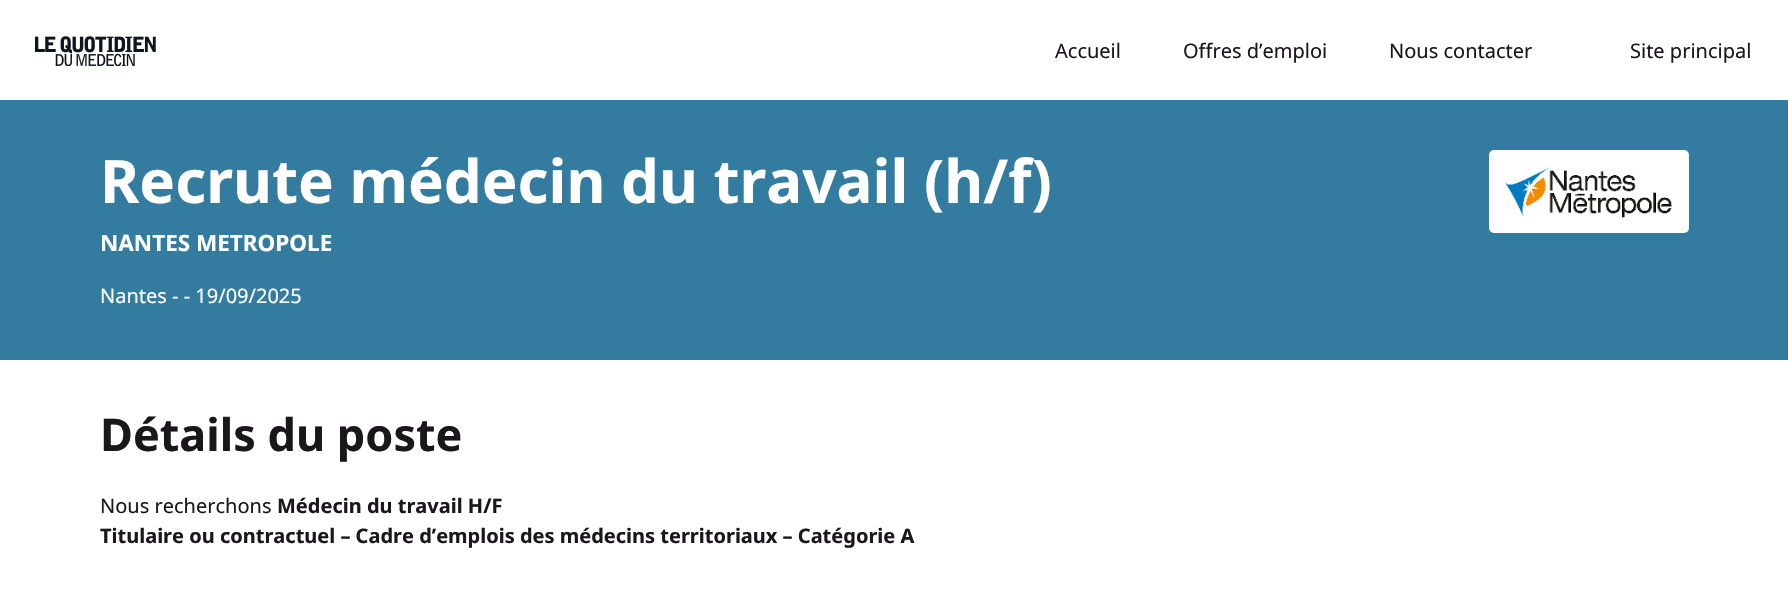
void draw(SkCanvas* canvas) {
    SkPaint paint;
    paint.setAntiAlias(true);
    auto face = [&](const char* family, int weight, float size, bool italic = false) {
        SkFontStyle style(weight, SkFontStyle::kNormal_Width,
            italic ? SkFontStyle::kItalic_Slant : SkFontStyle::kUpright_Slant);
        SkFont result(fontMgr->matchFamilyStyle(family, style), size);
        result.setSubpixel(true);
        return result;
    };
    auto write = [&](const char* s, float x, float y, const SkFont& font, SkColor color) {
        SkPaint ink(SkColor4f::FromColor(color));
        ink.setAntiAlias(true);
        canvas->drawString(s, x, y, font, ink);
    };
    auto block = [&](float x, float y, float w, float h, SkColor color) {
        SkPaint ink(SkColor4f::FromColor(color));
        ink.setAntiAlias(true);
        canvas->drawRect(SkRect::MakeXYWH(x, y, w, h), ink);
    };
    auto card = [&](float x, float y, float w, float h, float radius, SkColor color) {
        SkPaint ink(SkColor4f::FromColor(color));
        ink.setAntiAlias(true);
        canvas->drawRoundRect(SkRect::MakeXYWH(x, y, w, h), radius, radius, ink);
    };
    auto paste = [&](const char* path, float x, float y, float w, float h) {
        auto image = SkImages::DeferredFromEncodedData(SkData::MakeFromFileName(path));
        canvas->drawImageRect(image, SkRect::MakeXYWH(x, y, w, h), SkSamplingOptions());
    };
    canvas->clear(SK_ColorWHITE);
    paste("pic1.png", 35, 36, 121, 30);
    auto kFont1 = face("Noto Sans", 400, 20);
    write("Accueil", 1055, 58, kFont1, SkColorSetRGB(26, 23, 27));
    write("Offres d’emploi", 1183, 58, kFont1, SkColorSetRGB(26, 23, 27));
    write("Nous contacter", 1389, 58, kFont1, SkColorSetRGB(26, 23, 27));
    write("Site principal", 1630, 58, kFont1, SkColorSetRGB(26, 23, 27));
    block(0, 100, 1788, 260, SkColorSetRGB(51, 124, 159));
    auto kFont2 = face("Noto Sans", 700, 60);
    write("Recrute médecin du travail (h/f)", 100, 203, kFont2, SK_ColorWHITE);
    auto kFont3 = face("Noto Sans", 700, 22.5f);
    write("NANTES METROPOLE", 100, 251, kFont3, SK_ColorWHITE);
    write("Nantes - - 19/09/2025", 100, 303, kFont1, SK_ColorWHITE);
    card(1489, 150, 200, 83, 5, SK_ColorWHITE);
    paste("pic2.png", 1504, 166, 168, 52);
    auto kFont4 = face("Noto Sans", 700, 45);
    write("Détails du poste", 100, 451, kFont4, SkColorSetRGB(26, 23, 27));
    write("Nous recherchons", 100, 513, kFont1, SkColorSetRGB(26, 23, 27));
    auto kFont5 = face("Noto Sans", 700, 20);
    write("Médecin du travail H/F", 277, 513, kFont5, SkColorSetRGB(26, 23, 27));
    write("Titulaire ou contractuel – Cadre d’emplois des médecins territoriaux – Catégorie A", 100, 543, kFont5, SkColorSetRGB(26, 23, 27));
}
